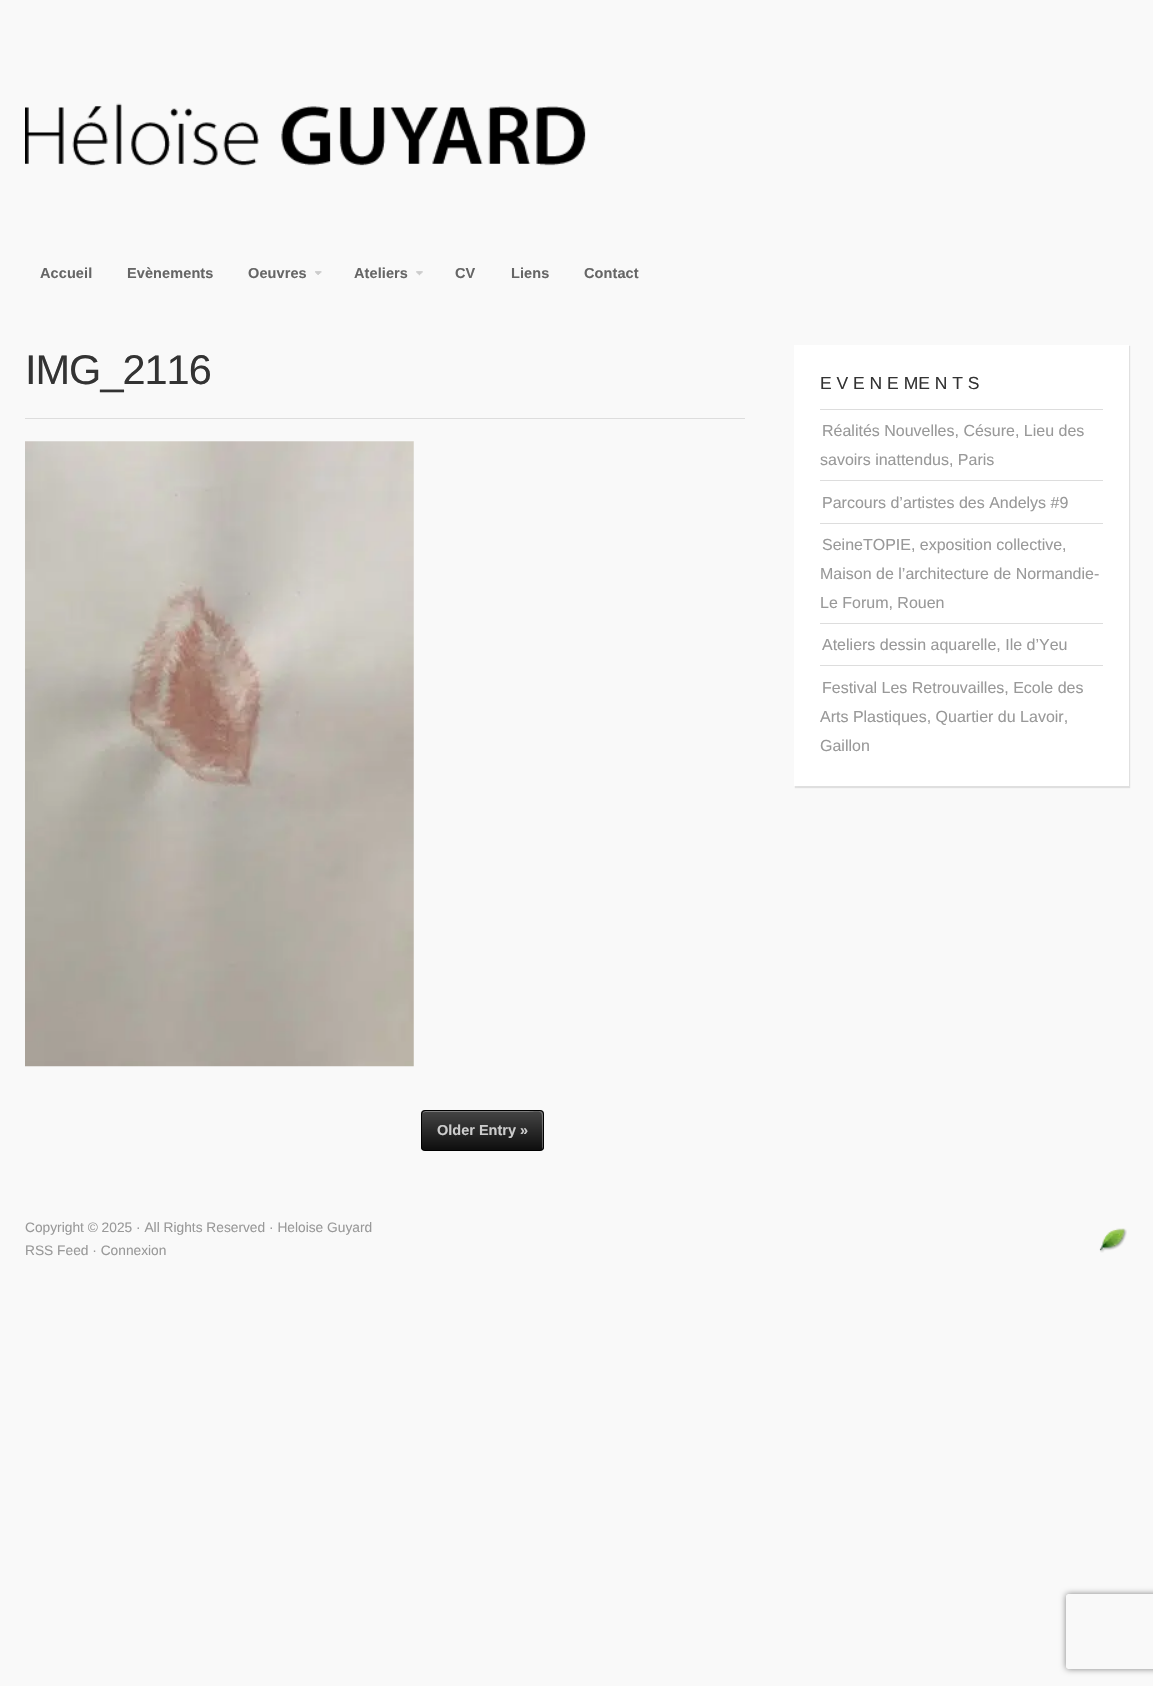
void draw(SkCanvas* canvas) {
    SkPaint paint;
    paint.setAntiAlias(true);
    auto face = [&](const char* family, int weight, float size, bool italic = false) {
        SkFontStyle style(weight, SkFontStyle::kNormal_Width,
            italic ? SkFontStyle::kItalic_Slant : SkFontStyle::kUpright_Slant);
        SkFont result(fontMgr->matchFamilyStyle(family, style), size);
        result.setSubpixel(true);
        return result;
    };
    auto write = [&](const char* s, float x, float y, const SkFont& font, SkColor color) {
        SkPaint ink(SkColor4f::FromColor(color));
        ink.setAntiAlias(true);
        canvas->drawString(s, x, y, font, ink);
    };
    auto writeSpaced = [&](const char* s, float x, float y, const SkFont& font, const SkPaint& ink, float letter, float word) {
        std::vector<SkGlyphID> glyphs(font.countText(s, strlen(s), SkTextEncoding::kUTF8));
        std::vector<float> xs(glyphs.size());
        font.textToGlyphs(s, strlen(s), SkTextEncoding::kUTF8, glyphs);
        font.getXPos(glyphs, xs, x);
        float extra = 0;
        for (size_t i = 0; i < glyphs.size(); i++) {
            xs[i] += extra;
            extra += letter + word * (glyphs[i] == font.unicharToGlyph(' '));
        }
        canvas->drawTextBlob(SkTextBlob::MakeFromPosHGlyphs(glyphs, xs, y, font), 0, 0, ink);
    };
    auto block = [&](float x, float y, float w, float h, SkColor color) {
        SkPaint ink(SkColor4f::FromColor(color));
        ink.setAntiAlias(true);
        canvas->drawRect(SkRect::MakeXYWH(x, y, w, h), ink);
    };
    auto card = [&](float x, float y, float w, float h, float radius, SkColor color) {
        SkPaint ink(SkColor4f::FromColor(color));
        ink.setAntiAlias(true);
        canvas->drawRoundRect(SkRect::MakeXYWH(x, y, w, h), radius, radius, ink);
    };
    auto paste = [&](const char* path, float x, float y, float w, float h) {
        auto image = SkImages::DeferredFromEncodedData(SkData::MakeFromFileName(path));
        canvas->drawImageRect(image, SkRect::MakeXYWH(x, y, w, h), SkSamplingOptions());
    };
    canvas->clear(SkColorSetRGB(249, 249, 249));
    paste("pic1.png", 25, 103, 561, 63);
    auto kFont1 = face("Liberation Sans", 700, 14.5f);
    paint.setColor(SkColorSetRGB(102, 102, 102));
    writeSpaced("Accueil", 40, 278, kFont1, paint, 0.1f, 0);
    writeSpaced("Evènements", 127, 278, kFont1, paint, 0.1f, 0);
    writeSpaced("Oeuvres", 248, 278, kFont1, paint, 0.1f, 0);
    paste("pic2.png", 315, 271, 7, 4);
    paste("pic3.png", 315, 271, 7, 4);
    writeSpaced("Ateliers", 354, 278, kFont1, paint, 0.1f, 0);
    paste("pic4.png", 416, 271, 7, 5);
    paste("pic5.png", 416, 271, 7, 5);
    writeSpaced("CV", 455, 278, kFont1, paint, 0.1f, 0);
    writeSpaced("Liens", 511, 278, kFont1, paint, 0.1f, 0);
    writeSpaced("Contact", 584, 278, kFont1, paint, 0.1f, 0);
    block(25, 418, 720, 1, SkColorSetRGB(221, 221, 221));
    auto kFont2 = face("Liberation Sans", 400, 41.5f);
    paint.setColor(SkColorSetRGB(51, 51, 51));
    writeSpaced("IMG_2116", 25, 384, kFont2, paint, -1, 0);
    paste("pic6.png", 25, 441, 389, 626);
    card(421, 1110, 123, 41, 4, SkColorSetRGB(68, 68, 68));
    canvas->save();
    canvas->clipPath(SkPathBuilder().moveTo(425, 1110).lineTo(540, 1110).cubicTo(542, 1110, 544, 1112, 544, 1114).lineTo(544, 1147).cubicTo(544, 1149, 542, 1151, 540, 1151).lineTo(425, 1151).cubicTo(423, 1151, 421, 1149, 421, 1147).lineTo(421, 1114).cubicTo(421, 1112, 423, 1110, 425, 1110).close().detach(), true);
    {
        const SkColor colors[] = {SkColorSetARGB(0, 0, 0, 0), SkColorSetARGB(204, 0, 0, 0)};
        const float stops[] = {0, 1};
        const SkPoint ends[] = {{483, 1111}, {483, 1150}};
        paint.setShader(SkGradientShader::MakeLinear(ends, colors, stops, 2, SkTileMode::kClamp));
        paint.setAlpha(255);
    }
    canvas->drawRect(SkRect::MakeXYWH(421, 1112, 123, 38), paint);
    canvas->restore();
    paint.setShader(nullptr);
    paint.setColor(SkColorSetARGB(77, 255, 255, 255));
    canvas->drawPath(SkPathBuilder().moveTo(425, 1112).lineTo(521, 1112).cubicTo(544, 1112, 542, 1107, 542, 1126).lineTo(542, 1150).cubicTo(543, 1149, 543, 1148, 543, 1148).lineTo(543, 1114).cubicTo(543, 1112, 542, 1111, 540, 1111).lineTo(426, 1111).cubicTo(424, 1111, 423, 1112, 423, 1113).close().detach(), paint);
    paint.setStyle(SkPaint::kStroke_Style);
    paint.setStrokeWidth(1);
    paint.setColor(SK_ColorBLACK);
    canvas->drawRoundRect(SkRect::MakeXYWH(421.5f, 1110.5f, 122, 40), 3.5f, 3.5f, paint);
    write("Older Entry »", 437, 1135, kFont1, SkColorSetRGB(204, 204, 204));
    paint.setStyle(SkPaint::kFill_Style);
    paint.setColor(SkColorSetARGB(26, 0, 0, 0));
    paint.setMaskFilter(SkMaskFilter::MakeBlur(kNormal_SkBlurStyle, 0.5f));
    canvas->drawRect(SkRect::MakeXYWH(795, 346, 335, 442), paint);
    paint.setMaskFilter(nullptr);
    block(794, 345, 335, 441, SK_ColorWHITE);
    auto kFont3 = face("Liberation Sans", 400, 17.5f);
    write("E V E N E ME N T S", 820, 389, kFont3, SkColorSetRGB(51, 51, 51));
    block(820, 409, 283, 1, SkColorSetRGB(221, 221, 221));
    auto kFont4 = face("Liberation Sans", 400, 16);
    write("Réalités Nouvelles, Césure, Lieu des", 822, 436, kFont4, SkColorSetRGB(153, 153, 153));
    write("savoirs inattendus, Paris", 820, 465, kFont4, SkColorSetRGB(153, 153, 153));
    block(820, 480, 283, 1, SkColorSetRGB(221, 221, 221));
    write("Parcours d’artistes des Andelys #9", 822, 508, kFont4, SkColorSetRGB(153, 153, 153));
    block(820, 523, 283, 1, SkColorSetRGB(221, 221, 221));
    write("SeineTOPIE, exposition collective,", 822, 550, kFont4, SkColorSetRGB(153, 153, 153));
    write("Maison de l’architecture de Normandie-", 820, 579, kFont4, SkColorSetRGB(153, 153, 153));
    write("Le Forum, Rouen", 820, 608, kFont4, SkColorSetRGB(153, 153, 153));
    block(820, 623, 283, 1, SkColorSetRGB(221, 221, 221));
    write("Ateliers dessin aquarelle, Ile d’Yeu", 822, 650, kFont4, SkColorSetRGB(153, 153, 153));
    block(820, 665, 283, 1, SkColorSetRGB(221, 221, 221));
    write("Festival Les Retrouvailles, Ecole des", 822, 693, kFont4, SkColorSetRGB(153, 153, 153));
    write("Arts Plastiques, Quartier du Lavoir,", 820, 722, kFont4, SkColorSetRGB(153, 153, 153));
    write("Gaillon", 820, 751, kFont4, SkColorSetRGB(153, 153, 153));
    auto kFont5 = face("Liberation Sans", 400, 13.75f);
    write("Copyright © 2025 · All Rights Reserved · Heloise Guyard", 25, 1232, kFont5, SkColorSetRGB(153, 153, 153));
    write("RSS Feed · Connexion", 25, 1255, kFont5, SkColorSetRGB(153, 153, 153));
    paste("pic7.png", 1099, 1228, 28, 25);
    canvas->save();
    canvas->clipPath(SkPathBuilder(SkPathFillType::kEvenOdd).moveTo(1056, 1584).lineTo(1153, 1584).lineTo(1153, 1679).lineTo(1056, 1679).close().moveTo(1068.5f, 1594).lineTo(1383.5f, 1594).cubicTo(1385, 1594, 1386, 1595, 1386, 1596.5f).lineTo(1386, 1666.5f).cubicTo(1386, 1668, 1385, 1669, 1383.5f, 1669).lineTo(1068.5f, 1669).cubicTo(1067, 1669, 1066, 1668, 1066, 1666.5f).lineTo(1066, 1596.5f).cubicTo(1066, 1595, 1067, 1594, 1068.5f, 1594).close().detach(), true);
    paint.setColor(SkColorSetRGB(128, 128, 128));
    paint.setMaskFilter(SkMaskFilter::MakeBlur(kNormal_SkBlurStyle, 3));
    canvas->drawRoundRect(SkRect::MakeXYWH(1066, 1594, 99, 75), 2.5f, 2.5f, paint);
    paint.setMaskFilter(nullptr);
    canvas->restore();
}
